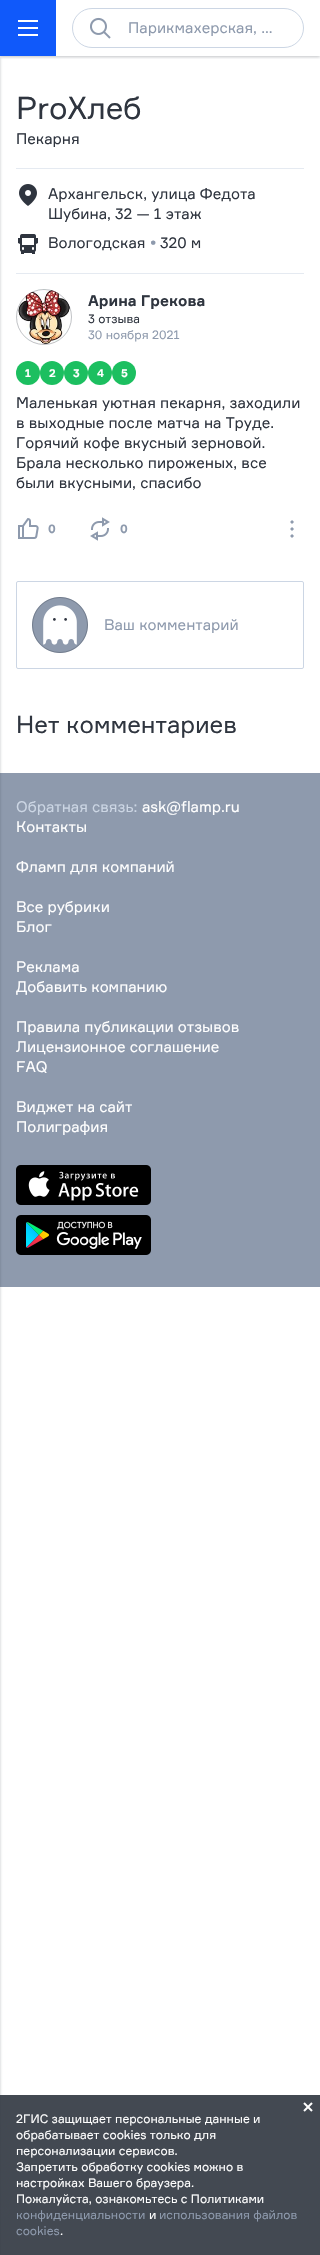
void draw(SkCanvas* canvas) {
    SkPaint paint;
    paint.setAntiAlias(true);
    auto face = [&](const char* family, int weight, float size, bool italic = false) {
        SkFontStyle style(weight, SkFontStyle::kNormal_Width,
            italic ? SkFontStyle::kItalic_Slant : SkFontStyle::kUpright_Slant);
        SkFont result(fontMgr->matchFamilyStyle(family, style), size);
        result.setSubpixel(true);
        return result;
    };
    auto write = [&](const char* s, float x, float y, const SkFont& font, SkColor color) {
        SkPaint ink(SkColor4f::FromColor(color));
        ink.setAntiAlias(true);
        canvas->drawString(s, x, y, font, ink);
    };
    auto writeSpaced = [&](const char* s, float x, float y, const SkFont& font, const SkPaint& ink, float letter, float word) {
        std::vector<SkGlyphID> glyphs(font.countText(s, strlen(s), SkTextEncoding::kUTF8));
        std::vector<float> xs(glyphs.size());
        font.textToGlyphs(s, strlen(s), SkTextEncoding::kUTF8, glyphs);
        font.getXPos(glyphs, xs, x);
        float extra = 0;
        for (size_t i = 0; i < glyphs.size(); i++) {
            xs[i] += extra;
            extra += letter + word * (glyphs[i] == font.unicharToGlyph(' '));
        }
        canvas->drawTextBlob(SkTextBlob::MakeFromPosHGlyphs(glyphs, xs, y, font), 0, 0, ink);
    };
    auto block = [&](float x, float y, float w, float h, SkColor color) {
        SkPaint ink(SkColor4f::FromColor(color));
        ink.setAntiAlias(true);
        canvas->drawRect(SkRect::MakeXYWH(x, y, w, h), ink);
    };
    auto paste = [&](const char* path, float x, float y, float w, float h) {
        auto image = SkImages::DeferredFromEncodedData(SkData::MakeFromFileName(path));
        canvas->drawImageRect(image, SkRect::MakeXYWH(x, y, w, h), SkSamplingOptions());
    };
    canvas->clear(SK_ColorWHITE);
    block(0, 773, 320, 514, SkColorSetRGB(142, 154, 173));
    paint.setColor(SkColorSetARGB(77, 47, 53, 63));
    paint.setMaskFilter(SkMaskFilter::MakeBlur(kNormal_SkBlurStyle, 1.5f));
    canvas->drawRect(SkRect::MakeXYWH(-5, 57, 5, 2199), paint);
    paint.setMaskFilter(nullptr);
    canvas->save();
    canvas->clipRect(SkRect::MakeXYWH(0, 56, 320, 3));
    paint.setMaskFilter(SkMaskFilter::MakeBlur(kNormal_SkBlurStyle, 1.5f));
    canvas->drawRect(SkRect::MakeXYWH(0, 1, 320, 56), paint);
    paint.setMaskFilter(nullptr);
    canvas->restore();
    block(0, 0, 56, 56, SkColorSetRGB(16, 89, 250));
    paste("pic1.png", 18, 20, 20, 16);
    paint.setStyle(SkPaint::kStroke_Style);
    paint.setStrokeWidth(1);
    paint.setColor(SkColorSetRGB(204, 214, 228));
    canvas->drawRoundRect(SkRect::MakeXYWH(72.5f, 8.5f, 231, 39), 19.5f, 19.5f, paint);
    paste("pic2.png", 90, 17, 21, 22);
    auto kFont1 = face("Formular", 400, 15);
    write("Парикмахерская, …", 128, 33, kFont1, SkColorSetRGB(142, 154, 173));
    auto kFont2 = face("Formular", 400, 31);
    paint.setStyle(SkPaint::kFill_Style);
    paint.setColor(SkColorSetRGB(47, 53, 63));
    writeSpaced("ProХлеб", 16, 119, kFont2, paint, -0.25f, 0);
    write("Пекарня", 16, 144, kFont1, SkColorSetRGB(47, 53, 63));
    block(16, 168, 288, 1, SkColorSetRGB(229, 234, 241));
    paste("pic3.png", 19, 184, 18, 22);
    write("Архангельск, улица Федота", 48, 199, kFont1, SkColorSetRGB(47, 53, 63));
    write("Шубина, 32 — 1 этаж", 48, 219, kFont1, SkColorSetRGB(47, 53, 63));
    paste("pic4.png", 18, 234, 20, 20);
    write("Вологодская", 48, 248, kFont1, SkColorSetRGB(47, 53, 63));
    write("•", 150, 248, kFont1, SkColorSetRGB(142, 154, 173));
    write("320 м", 160, 248, kFont1, SkColorSetRGB(47, 53, 63));
    block(16, 273, 288, 1, SkColorSetRGB(229, 234, 241));
    paste("pic5.png", 17, 289, 53, 56);
    paint.setStyle(SkPaint::kStroke_Style);
    paint.setColor(SkColorSetARGB(77, 47, 53, 63));
    canvas->drawCircle(44, 317, 27.5f, paint);
    auto kFont3 = face("Formular", 700, 15);
    write("Арина Грекова", 88, 306, kFont3, SkColorSetRGB(47, 53, 63));
    auto kFont4 = face("Formular", 400, 12);
    write("3 отзыва", 88, 323, kFont4, SkColorSetRGB(47, 53, 63));
    write("30 ноября 2021", 88, 339, kFont4, SkColorSetRGB(142, 154, 173));
    paint.setStyle(SkPaint::kFill_Style);
    paint.setColor(SkColorSetRGB(28, 191, 96));
    canvas->drawCircle(28, 373, 12, paint);
    auto kFont5 = face("Formular", 700, 11);
    write("1", 25, 377, kFont5, SK_ColorWHITE);
    canvas->drawCircle(52, 373, 12, paint);
    write("2", 49, 377, kFont5, SK_ColorWHITE);
    canvas->drawCircle(76, 373, 12, paint);
    write("3", 73, 377, kFont5, SK_ColorWHITE);
    canvas->drawCircle(100, 373, 12, paint);
    write("4", 97, 377, kFont5, SK_ColorWHITE);
    canvas->drawCircle(124, 373, 12, paint);
    write("5", 121, 377, kFont5, SK_ColorWHITE);
    write("Маленькая уютная пекарня, заходили", 16, 408, kFont1, SkColorSetRGB(47, 53, 63));
    write("в выходные после матча на Труде.", 16, 428, kFont1, SkColorSetRGB(47, 53, 63));
    write("Горячий кофе вкусный зерновой.", 16, 448, kFont1, SkColorSetRGB(47, 53, 63));
    write("Брала несколько пироженых, все", 16, 468, kFont1, SkColorSetRGB(47, 53, 63));
    write("были вкусными, спасибо", 16, 488, kFont1, SkColorSetRGB(47, 53, 63));
    paste("pic6.png", 18, 518, 21, 21);
    auto kFont6 = face("Formular", 700, 12);
    write("0", 48, 533, kFont6, SkColorSetRGB(142, 154, 173));
    paste("pic7.png", 90, 517, 20, 24);
    write("0", 120, 533, kFont6, SkColorSetRGB(142, 154, 173));
    paste("pic8.png", 290, 520, 4, 18);
    paint.setStyle(SkPaint::kStroke_Style);
    paint.setColor(SkColorSetRGB(204, 214, 228));
    canvas->drawRoundRect(SkRect::MakeXYWH(16.5f, 581.5f, 287, 87), 1.5f, 1.5f, paint);
    paste("pic9.png", 32, 597, 56, 56);
    paint.setColor(SkColorSetARGB(77, 47, 53, 63));
    canvas->drawCircle(60, 625, 27.5f, paint);
    write("Ваш комментарий", 104, 630, kFont1, SkColorSetRGB(142, 154, 173));
    auto kFont7 = face("Formular", 400, 24);
    paint.setStyle(SkPaint::kFill_Style);
    paint.setColor(SkColorSetRGB(47, 53, 63));
    writeSpaced("Нет комментариев", 16, 733, kFont7, paint, -0.1f, 0);
    write("Обратная связь:", 16, 812, kFont1, SkColorSetRGB(204, 214, 228));
    write("ask@flamp.ru", 142, 812, kFont1, SK_ColorWHITE);
    write("Контакты", 16, 832, kFont1, SK_ColorWHITE);
    write("Фламп для компаний", 16, 872, kFont1, SK_ColorWHITE);
    write("Все рубрики", 16, 912, kFont1, SK_ColorWHITE);
    write("Блог", 16, 932, kFont1, SK_ColorWHITE);
    write("Реклама", 16, 972, kFont1, SK_ColorWHITE);
    write("Добавить компанию", 16, 992, kFont1, SK_ColorWHITE);
    write("Правила публикации отзывов", 16, 1032, kFont1, SK_ColorWHITE);
    write("Лицензионное соглашение", 16, 1052, kFont1, SK_ColorWHITE);
    write("FAQ", 16, 1072, kFont1, SK_ColorWHITE);
    write("Виджет на сайт", 16, 1112, kFont1, SK_ColorWHITE);
    write("Полиграфия", 16, 1132, kFont1, SK_ColorWHITE);
    paste("pic10.png", 16, 1165, 135, 40);
    paste("pic11.png", 16, 1215, 135, 40);
    block(0, 2095, 320, 160, SkColorSetARGB(230, 47, 53, 63));
    paste("pic12.png", 303, 2102, 10, 10);
    write("2ГИС защищает персональные данные и", 16, 2123, kFont4, SK_ColorWHITE);
    write("обрабатывает cookies только для", 16, 2139, kFont4, SK_ColorWHITE);
    write("персонализации сервисов.", 16, 2155, kFont4, SK_ColorWHITE);
    write("Запретить обработку cookies можно в", 16, 2171, kFont4, SK_ColorWHITE);
    write("настройках Вашего браузера.", 16, 2187, kFont4, SK_ColorWHITE);
    write("Пожалуйста, ознакомьтесь с Политиками", 16, 2203, kFont4, SK_ColorWHITE);
    write("конфиденциальности", 16, 2219, kFont4, SkColorSetRGB(142, 154, 173));
    write("и", 149, 2219, kFont4, SK_ColorWHITE);
    write("использования файлов", 159, 2219, kFont4, SkColorSetRGB(142, 154, 173));
    write("cookies", 16, 2235, kFont4, SkColorSetRGB(142, 154, 173));
    write(".", 60, 2235, kFont4, SK_ColorWHITE);
}
